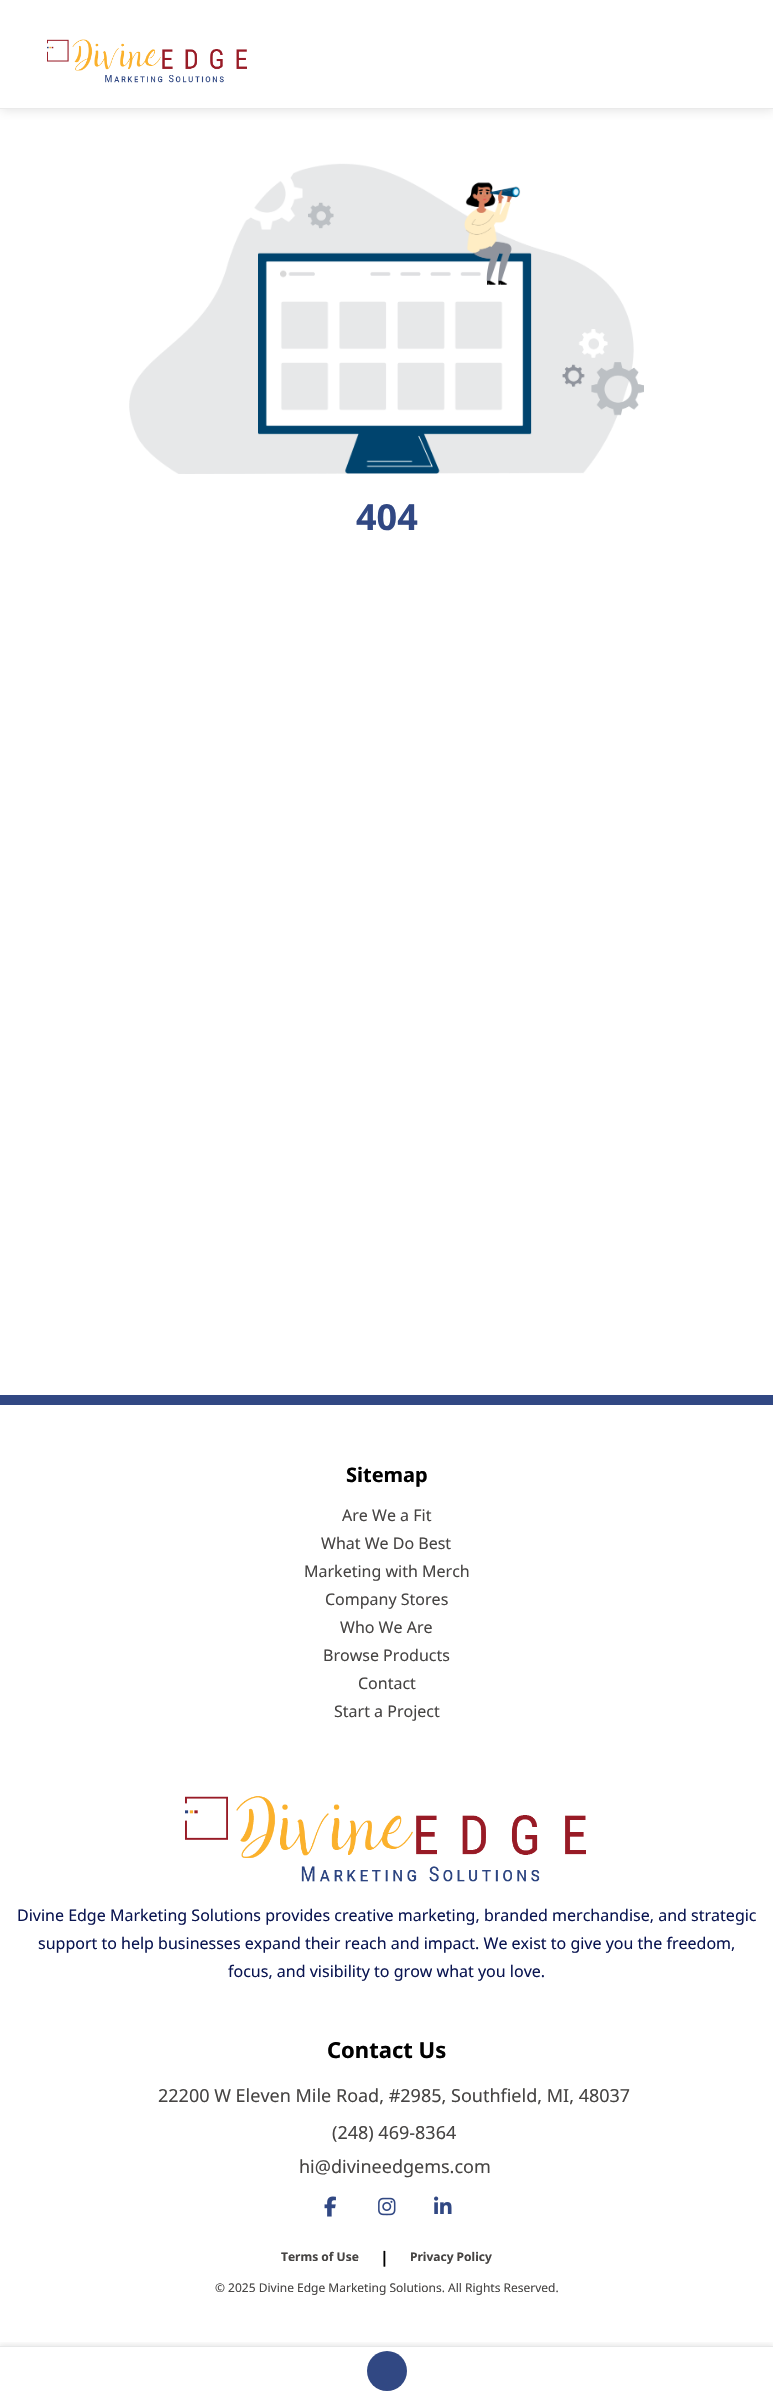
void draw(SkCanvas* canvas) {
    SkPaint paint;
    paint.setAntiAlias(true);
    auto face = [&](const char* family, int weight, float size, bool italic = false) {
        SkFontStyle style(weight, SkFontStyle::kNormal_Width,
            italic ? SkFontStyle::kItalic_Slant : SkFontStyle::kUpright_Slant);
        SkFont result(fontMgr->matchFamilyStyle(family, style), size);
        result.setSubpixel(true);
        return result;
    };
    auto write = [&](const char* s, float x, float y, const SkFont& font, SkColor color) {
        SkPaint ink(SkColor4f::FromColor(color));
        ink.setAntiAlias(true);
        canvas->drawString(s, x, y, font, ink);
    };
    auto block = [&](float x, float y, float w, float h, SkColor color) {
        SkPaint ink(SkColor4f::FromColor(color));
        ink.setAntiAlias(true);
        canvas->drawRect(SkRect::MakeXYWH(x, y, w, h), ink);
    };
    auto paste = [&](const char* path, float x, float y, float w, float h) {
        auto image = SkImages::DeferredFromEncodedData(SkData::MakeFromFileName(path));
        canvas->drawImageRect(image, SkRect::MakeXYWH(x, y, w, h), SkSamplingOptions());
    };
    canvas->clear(SK_ColorWHITE);
    canvas->save();
    canvas->clipRect(SkRect::MakeXYWH(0, 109, 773, 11));
    paint.setColor(SkColorSetRGB(226, 226, 226));
    paint.setMaskFilter(SkMaskFilter::MakeBlur(kNormal_SkBlurStyle, 5));
    canvas->drawRect(SkRect::MakeXYWH(1, 1, 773, 109), paint);
    paint.setMaskFilter(nullptr);
    canvas->restore();
    block(0, 108, 773, 1, SkColorSetRGB(234, 234, 234));
    paste("pic1.png", 47, 39, 200, 44);
    canvas->save();
    canvas->clipRect(SkRect::MakeXYWH(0, 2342, 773, 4));
    paint.setColor(SkColorSetARGB(26, 0, 0, 0));
    paint.setMaskFilter(SkMaskFilter::MakeBlur(kNormal_SkBlurStyle, 3));
    canvas->drawRect(SkRect::MakeXYWH(-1, 2345, 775, 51), paint);
    paint.setMaskFilter(nullptr);
    canvas->restore();
    block(0, 2346, 773, 1, SkColorSetRGB(231, 232, 233));
    paint.setColor(SkColorSetRGB(49, 72, 131));
    canvas->drawCircle(387, 2371, 20, paint);
    paste("pic2.png", 129, 163, 515, 311);
    auto kFont1 = face("Noto Sans", 700, 36);
    write("404", 356, 530, kFont1, SkColorSetRGB(49, 72, 131));
    block(0, 1395, 773, 10, SkColorSetRGB(49, 72, 131));
    auto kFont2 = face("Noto Sans", 700, 20);
    write("Sitemap", 346, 1482, kFont2, SK_ColorBLACK);
    auto kFont3 = face("Noto Sans", 400, 16);
    write("Are We a Fit", 342, 1521, kFont3, SkColorSetRGB(70, 68, 67));
    write("What We Do Best", 321, 1549, kFont3, SkColorSetRGB(70, 68, 67));
    write("Marketing with Merch", 304, 1577, kFont3, SkColorSetRGB(70, 68, 67));
    write("Company Stores", 325, 1605, kFont3, SkColorSetRGB(70, 68, 67));
    write("Who We Are", 340, 1633, kFont3, SkColorSetRGB(70, 68, 67));
    write("Browse Products", 323, 1661, kFont3, SkColorSetRGB(70, 68, 67));
    write("Contact", 358, 1689, kFont3, SkColorSetRGB(70, 68, 67));
    write("Start a Project", 334, 1717, kFont3, SkColorSetRGB(70, 68, 67));
    paste("pic3.png", 185, 1796, 401, 86);
    write("Divine Edge Marketing Solutions provides creative marketing, branded merchandise, and strategic", 17, 1921, kFont3, SkColorSetRGB(10, 21, 81));
    write("support to help businesses expand their reach and impact. We exist to give you the freedom,", 38, 1949, kFont3, SkColorSetRGB(10, 21, 81));
    write("focus, and visibility to grow what you love.", 228, 1977, kFont3, SkColorSetRGB(10, 21, 81));
    auto kFont4 = face("Noto Sans", 700, 22);
    write("Contact Us", 327, 2058, kFont4, SK_ColorBLACK);
    auto kFont5 = face("Noto Sans", 400, 18);
    write("22200 W Eleven Mile Road, #2985, Southfield, MI, 48037", 158, 2102, kFont5, SkColorSetRGB(70, 68, 67));
    write("(248) 469-8364", 332, 2139, kFont5, SkColorSetRGB(70, 68, 67));
    write("hi@divineedgems.com", 299, 2173, kFont5, SkColorSetRGB(70, 68, 67));
    paste("pic4.png", 324, 2196, 12, 21);
    paste("pic5.png", 378, 2197, 18, 19);
    paste("pic6.png", 434, 2196, 18, 18);
    auto kFont6 = face("Noto Sans", 700, 12);
    write("Terms of Use", 281, 2261, kFont6, SkColorSetRGB(70, 68, 67));
    auto kFont7 = face("Noto Sans", 700, 16);
    write("|", 380, 2263, kFont7, SK_ColorBLACK);
    write("Privacy Policy", 410, 2261, kFont6, SkColorSetRGB(70, 68, 67));
    auto kFont8 = face("Noto Sans", 400, 12);
    write("© 2025 Divine Edge Marketing Solutions. All Rights Reserved.", 215, 2292, kFont8, SkColorSetRGB(70, 68, 67));
}
